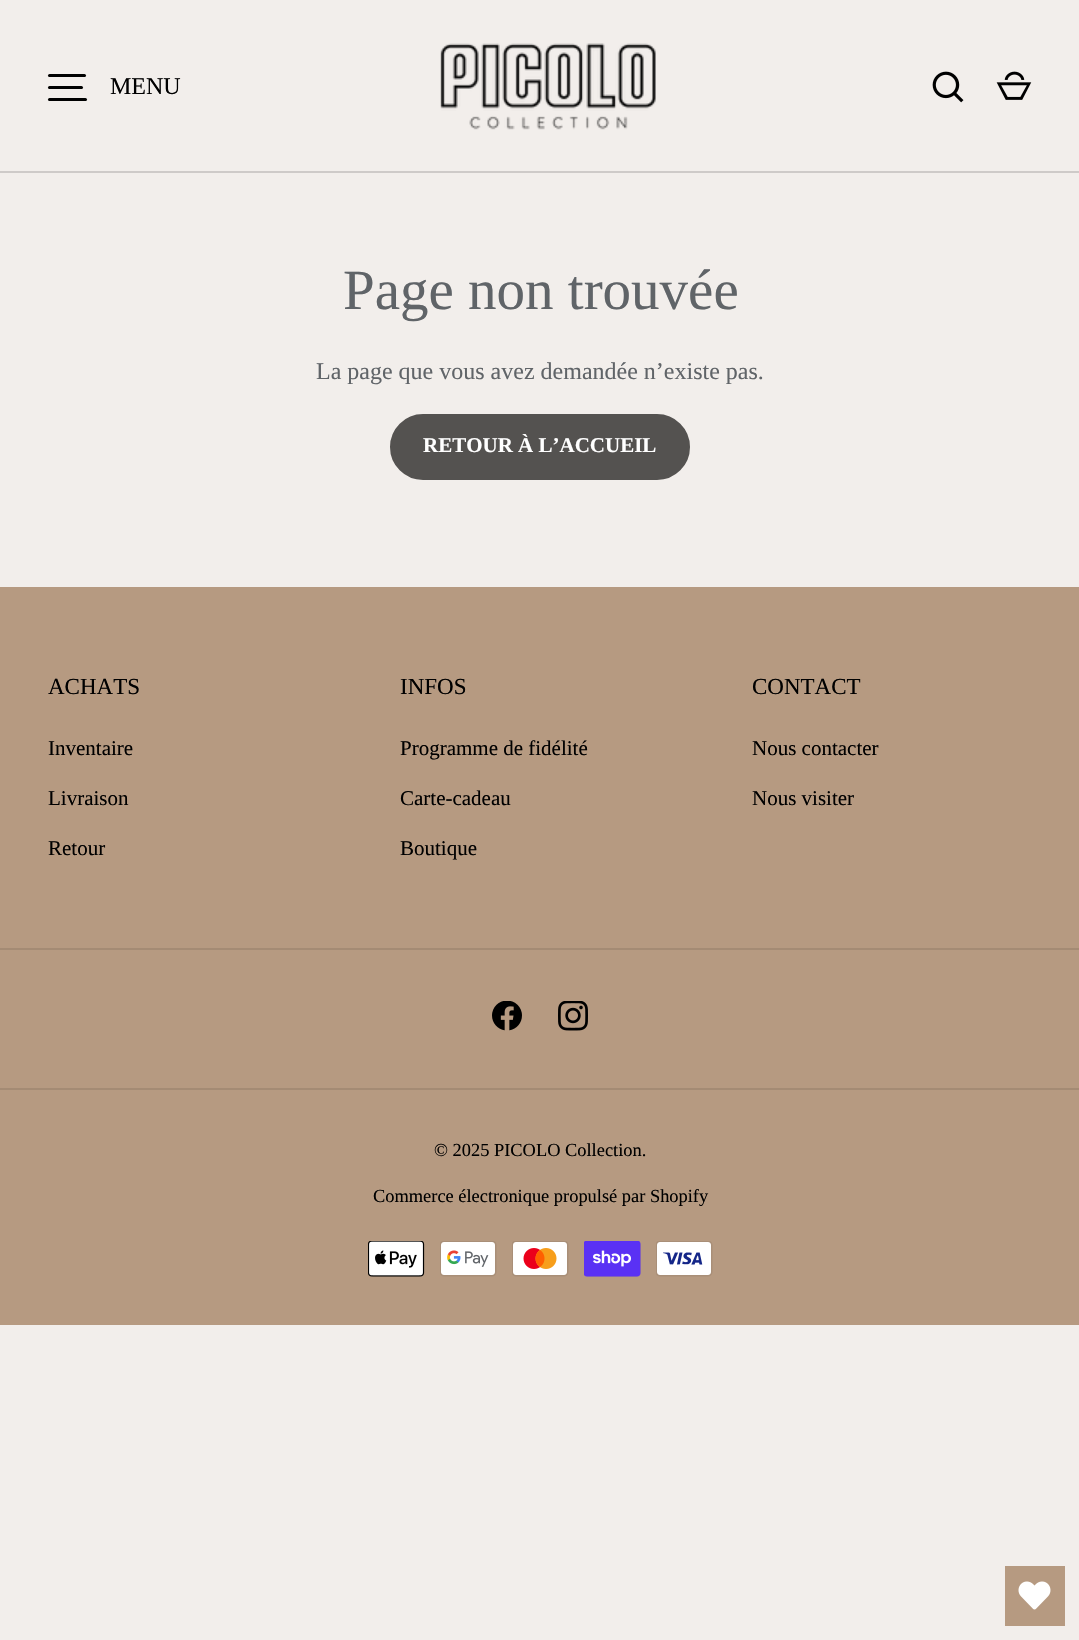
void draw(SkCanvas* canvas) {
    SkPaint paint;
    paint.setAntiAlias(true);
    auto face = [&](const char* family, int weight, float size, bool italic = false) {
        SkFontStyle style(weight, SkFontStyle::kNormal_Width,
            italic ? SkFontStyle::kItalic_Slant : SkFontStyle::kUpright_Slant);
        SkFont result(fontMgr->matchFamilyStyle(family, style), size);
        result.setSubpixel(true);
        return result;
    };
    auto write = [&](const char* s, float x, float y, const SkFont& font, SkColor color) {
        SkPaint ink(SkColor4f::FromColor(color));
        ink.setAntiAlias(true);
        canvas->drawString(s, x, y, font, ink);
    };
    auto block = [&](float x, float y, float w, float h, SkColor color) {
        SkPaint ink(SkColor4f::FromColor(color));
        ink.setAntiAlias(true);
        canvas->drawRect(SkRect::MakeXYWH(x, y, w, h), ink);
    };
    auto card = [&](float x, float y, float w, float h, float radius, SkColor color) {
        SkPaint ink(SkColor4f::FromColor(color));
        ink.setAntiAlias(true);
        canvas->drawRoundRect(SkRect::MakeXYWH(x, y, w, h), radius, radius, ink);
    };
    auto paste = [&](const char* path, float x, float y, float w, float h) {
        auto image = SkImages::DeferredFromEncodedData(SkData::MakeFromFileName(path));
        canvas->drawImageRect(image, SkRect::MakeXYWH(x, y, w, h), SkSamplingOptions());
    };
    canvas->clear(SkColorSetRGB(242, 238, 235));
    card(48, 74, 38, 3, 1.5f, SK_ColorBLACK);
    card(48, 86, 35, 3, 1.5f, SK_ColorBLACK);
    card(48, 98, 39, 3, 1.5f, SK_ColorBLACK);
    auto kFont1 = face("Liberation Serif", 400, 24);
    write("MENU", 110, 94, kFont1, SK_ColorBLACK);
    paste("pic1.png", 440, 43, 216, 87);
    paste("pic2.png", 932, 71, 32, 32);
    paste("pic3.png", 996, 71, 36, 29);
    block(0, 171, 1079, 2, SkColorSetRGB(206, 202, 200));
    auto kFont2 = face("Liberation Serif", 400, 57);
    write("Page non trouvée", 343, 309, kFont2, SkColorSetRGB(96, 100, 104));
    write("La page que vous avez demandée n’existe pas.", 316, 379, kFont1, SkColorSetRGB(96, 100, 104));
    paint.setColor(SkColorSetRGB(84, 82, 80));
    canvas->drawRoundRect(SkRect::MakeXYWH(391.5f, 415.5f, 297, 63), 31.5f, 31.5f, paint);
    paint.setStyle(SkPaint::kStroke_Style);
    paint.setStrokeWidth(3);
    canvas->drawRoundRect(SkRect::MakeXYWH(391.5f, 415.5f, 297, 63), 31.5f, 31.5f, paint);
    auto kFont3 = face("Liberation Serif", 700, 21);
    write("RETOUR À L’ACCUEIL", 423, 452, kFont3, SK_ColorWHITE);
    block(0, 587, 1079, 738, SkColorSetRGB(182, 154, 129));
    auto kFont4 = face("Liberation Serif", 400, 23);
    write("ACHATS", 48, 694, kFont4, SK_ColorBLACK);
    auto kFont5 = face("Liberation Serif", 400, 21);
    write("Inventaire", 48, 755, kFont5, SK_ColorBLACK);
    write("Livraison", 48, 805, kFont5, SK_ColorBLACK);
    write("Retour", 48, 855, kFont5, SK_ColorBLACK);
    write("INFOS", 400, 694, kFont4, SK_ColorBLACK);
    write("Programme de fidélité", 400, 755, kFont5, SK_ColorBLACK);
    write("Carte-cadeau", 400, 805, kFont5, SK_ColorBLACK);
    write("Boutique", 400, 855, kFont5, SK_ColorBLACK);
    write("CONTACT", 752, 694, kFont4, SK_ColorBLACK);
    write("Nous contacter", 752, 755, kFont5, SK_ColorBLACK);
    write("Nous visiter", 752, 805, kFont5, SK_ColorBLACK);
    block(0, 948, 1079, 2, SkColorSetRGB(164, 139, 116));
    paste("pic4.png", 492, 1001, 30, 30);
    paste("pic5.png", 558, 1001, 30, 30);
    block(0, 1088, 1079, 2, SkColorSetRGB(164, 139, 116));
    auto kFont6 = face("Liberation Serif", 400, 18.4f);
    write("© 2025 PICOLO Collection.", 434, 1156, kFont6, SK_ColorBLACK);
    write("Commerce électronique propulsé par Shopify", 373, 1202, kFont6, SK_ColorBLACK);
    paste("pic6.png", 368, 1241, 57, 36);
    paste("pic7.png", 440, 1241, 57, 36);
    paste("pic8.png", 512, 1241, 57, 36);
    paste("pic9.png", 584, 1241, 57, 36);
    paste("pic10.png", 656, 1241, 57, 36);
    block(1005, 1566, 60, 60, SkColorSetRGB(182, 154, 129));
    paste("pic11.png", 1018, 1581, 33, 29);
}
